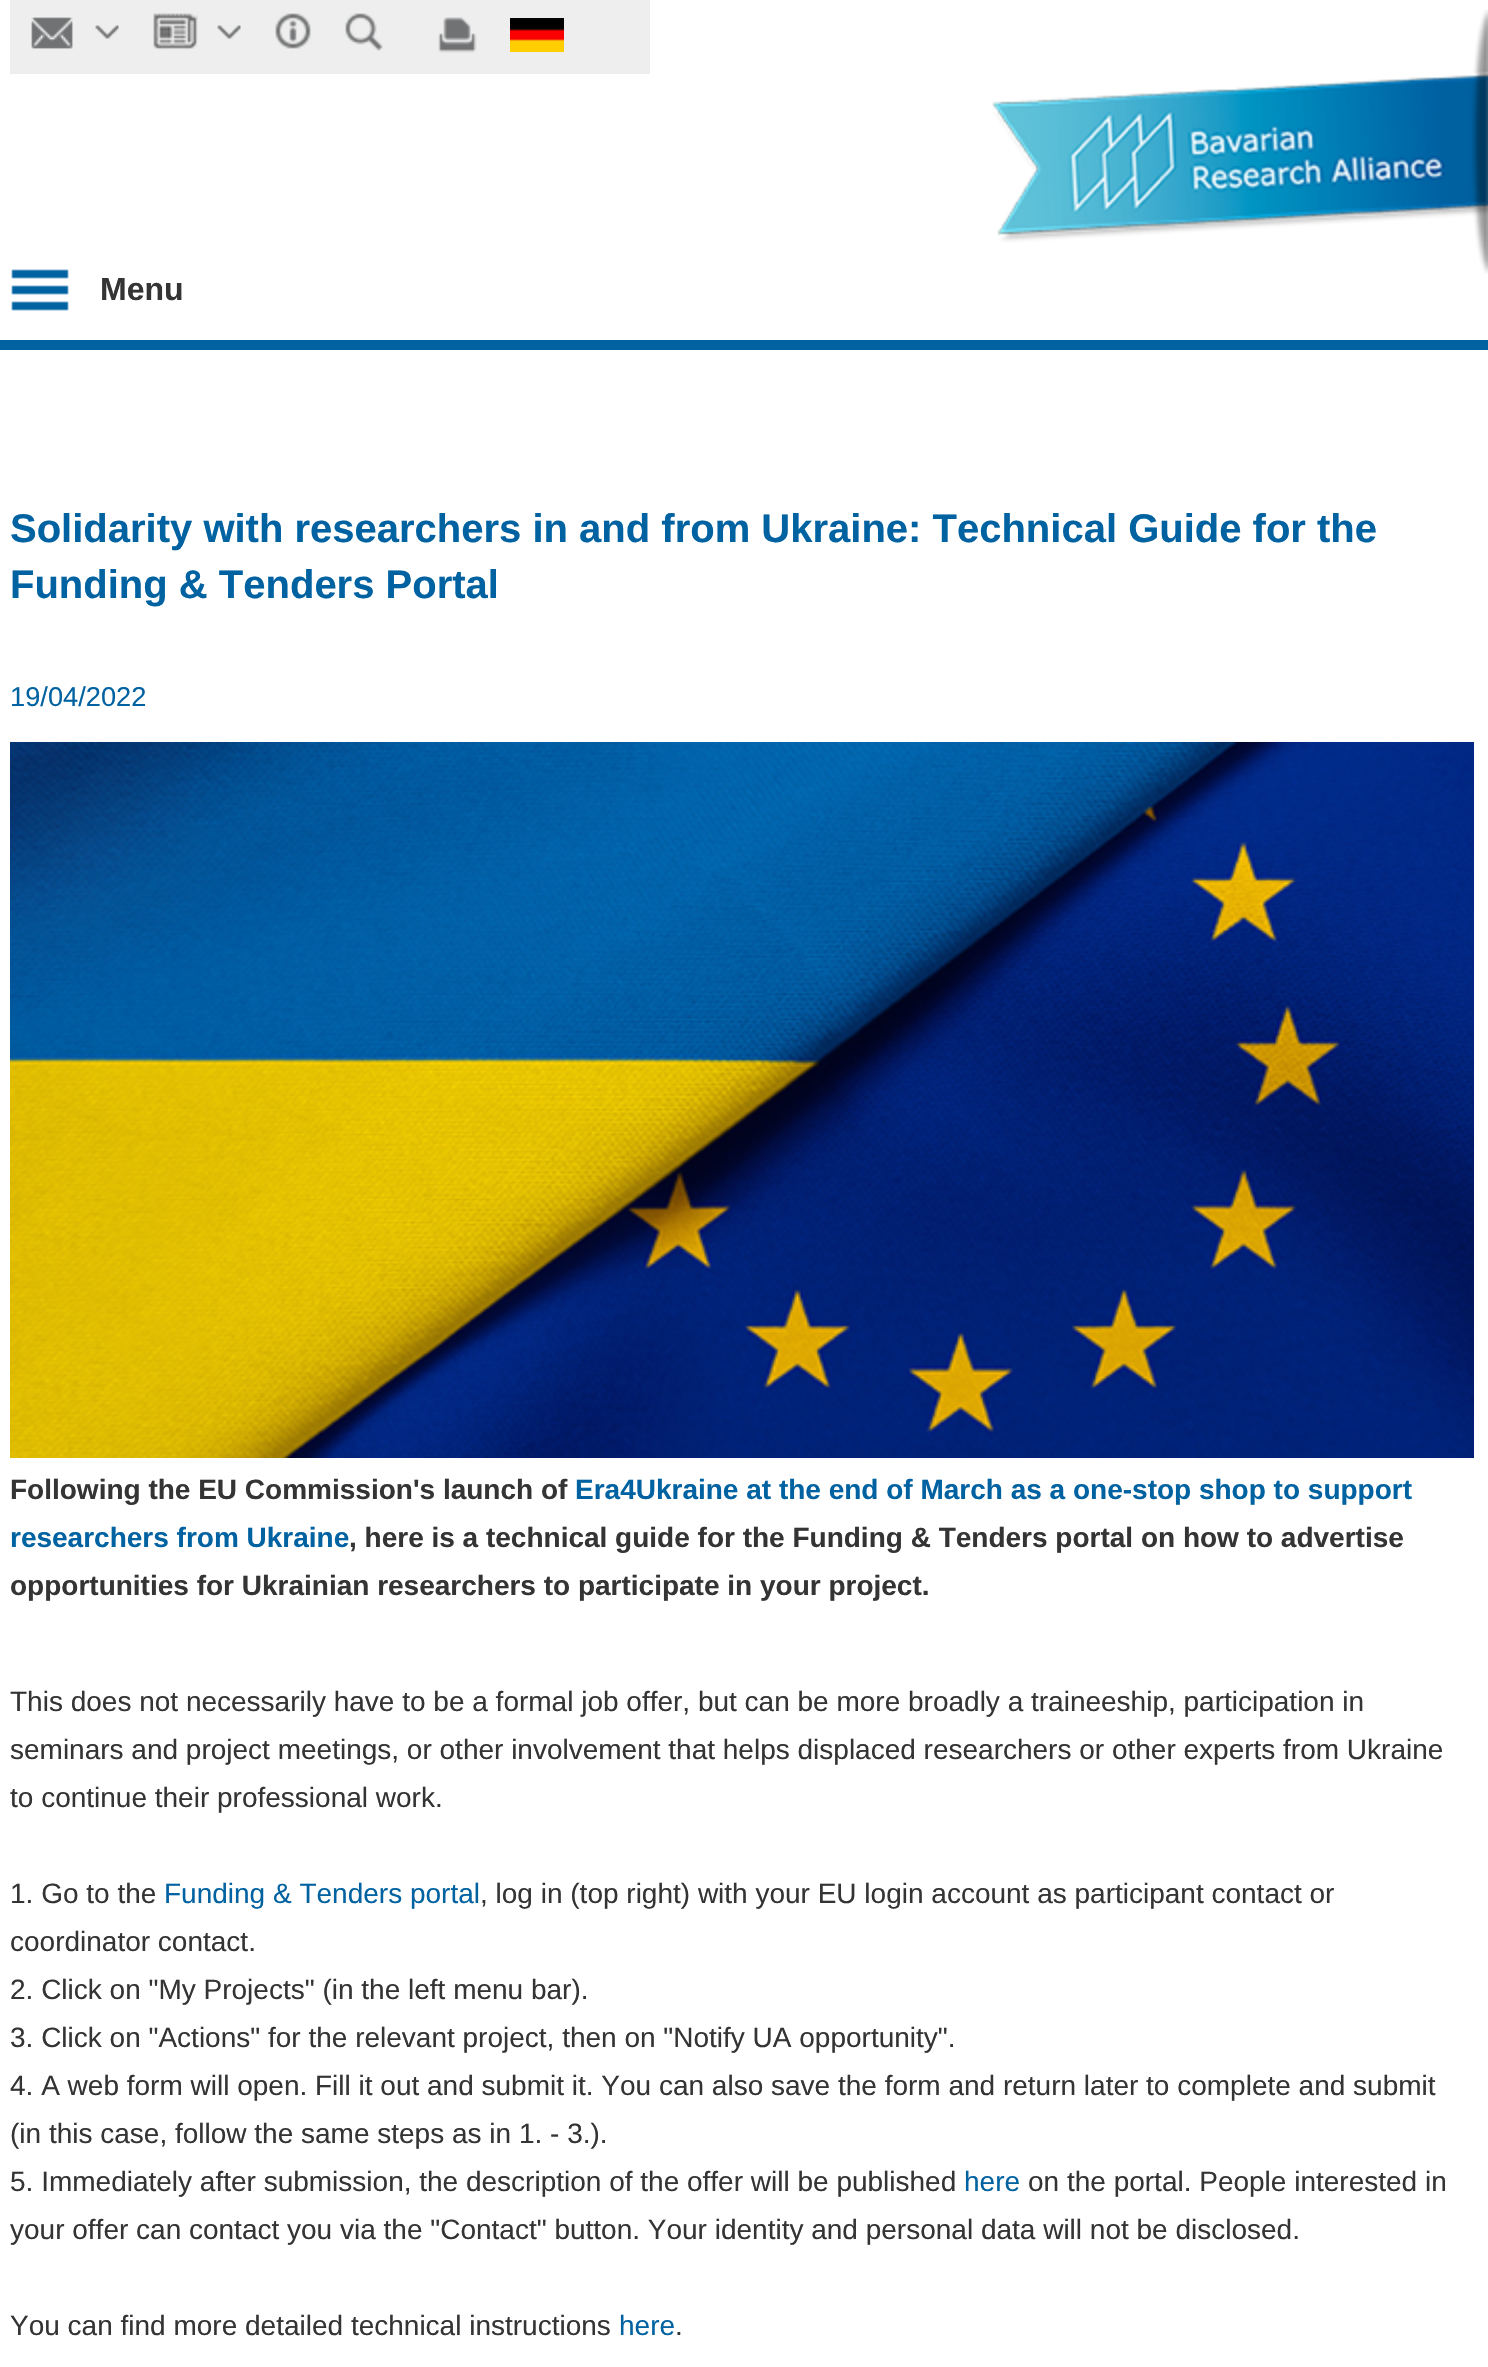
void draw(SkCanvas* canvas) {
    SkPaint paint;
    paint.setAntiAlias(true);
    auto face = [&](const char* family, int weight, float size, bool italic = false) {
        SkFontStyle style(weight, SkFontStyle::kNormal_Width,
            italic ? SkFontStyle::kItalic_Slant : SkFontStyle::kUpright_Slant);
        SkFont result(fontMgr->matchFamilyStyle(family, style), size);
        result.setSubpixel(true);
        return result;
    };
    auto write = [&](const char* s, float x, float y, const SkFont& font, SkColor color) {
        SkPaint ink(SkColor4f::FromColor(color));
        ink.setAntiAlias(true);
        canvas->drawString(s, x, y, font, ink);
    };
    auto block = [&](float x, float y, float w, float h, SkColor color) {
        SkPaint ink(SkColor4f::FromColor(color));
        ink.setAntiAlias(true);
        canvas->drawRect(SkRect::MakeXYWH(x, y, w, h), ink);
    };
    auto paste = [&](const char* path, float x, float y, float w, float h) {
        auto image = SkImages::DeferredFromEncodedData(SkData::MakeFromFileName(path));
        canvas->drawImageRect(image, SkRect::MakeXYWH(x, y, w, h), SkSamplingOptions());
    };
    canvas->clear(SK_ColorWHITE);
    block(0, 340, 1488, 10, SkColorSetRGB(0, 98, 161));
    paste("pic1.png", 992, 9, 496, 265);
    block(10, 0, 640, 74, SkColorSetRGB(238, 238, 238));
    paste("pic2.png", 31, 17, 42, 32);
    paste("pic3.png", 95, 25, 24, 14);
    paste("pic4.png", 153, 13, 45, 37);
    paste("pic5.png", 217, 25, 24, 14);
    paste("pic6.png", 275, 13, 36, 36);
    paste("pic7.png", 345, 13, 38, 38);
    paste("pic8.png", 438, 17, 39, 36);
    paste("pic9.png", 510, 18, 54, 34);
    paste("pic10.png", 11, 269, 58, 42);
    auto kFont1 = face("Liberation Sans", 700, 32);
    write("Menu", 100, 300, kFont1, SkColorSetRGB(52, 52, 52));
    auto kFont2 = face("Liberation Sans", 700, 40);
    write("Solidarity with researchers in and from Ukraine: Technical Guide for the", 10, 542, kFont2, SkColorSetRGB(0, 98, 161));
    write("Funding & Tenders Portal", 10, 598, kFont2, SkColorSetRGB(0, 98, 161));
    auto kFont3 = face("Liberation Sans", 400, 27.25f);
    write("19/04/2022", 10, 706, kFont3, SkColorSetRGB(0, 98, 161));
    paste("pic11.png", 10, 742, 1464, 716);
    auto kFont4 = face("Liberation Sans", 700, 28);
    write("Following the EU Commission's launch of", 10, 1499, kFont4, SkColorSetRGB(52, 52, 52));
    write("Era4Ukraine at the end of March as a one-stop shop to support", 575, 1499, kFont4, SkColorSetRGB(0, 98, 161));
    write("researchers from Ukraine", 10, 1547, kFont4, SkColorSetRGB(0, 98, 161));
    write(", here is a technical guide for the Funding & Tenders portal on how to advertise", 349, 1547, kFont4, SkColorSetRGB(52, 52, 52));
    write("opportunities for Ukrainian researchers to participate in your project.", 10, 1595, kFont4, SkColorSetRGB(52, 52, 52));
    auto kFont5 = face("Liberation Sans", 400, 28);
    write("This does not necessarily have to be a formal job offer, but can be more broadly a traineeship, participation in", 10, 1711, kFont5, SkColorSetRGB(52, 52, 52));
    write("seminars and project meetings, or other involvement that helps displaced researchers or other experts from Ukraine", 10, 1759, kFont5, SkColorSetRGB(52, 52, 52));
    write("to continue their professional work.", 10, 1807, kFont5, SkColorSetRGB(52, 52, 52));
    write("1. Go to the", 10, 1903, kFont5, SkColorSetRGB(52, 52, 52));
    write("Funding & Tenders portal", 164, 1903, kFont5, SkColorSetRGB(0, 98, 161));
    write(", log in (top right) with your EU login account as participant contact or", 480, 1903, kFont5, SkColorSetRGB(52, 52, 52));
    write("coordinator contact.", 10, 1951, kFont5, SkColorSetRGB(52, 52, 52));
    write("2. Click on \"My Projects\" (in the left menu bar).", 10, 1999, kFont5, SkColorSetRGB(52, 52, 52));
    write("3. Click on \"Actions\" for the relevant project, then on \"Notify UA opportunity\".", 10, 2047, kFont5, SkColorSetRGB(52, 52, 52));
    write("4. A web form will open. Fill it out and submit it. You can also save the form and return later to complete and submit", 10, 2095, kFont5, SkColorSetRGB(52, 52, 52));
    write("(in this case, follow the same steps as in 1. - 3.).", 10, 2143, kFont5, SkColorSetRGB(52, 52, 52));
    write("5. Immediately after submission, the description of the offer will be published", 10, 2191, kFont5, SkColorSetRGB(52, 52, 52));
    write("here", 964, 2191, kFont5, SkColorSetRGB(0, 98, 161));
    write("on the portal. People interested in", 1028, 2191, kFont5, SkColorSetRGB(52, 52, 52));
    write("your offer can contact you via the \"Contact\" button. Your identity and personal data will not be disclosed.", 10, 2239, kFont5, SkColorSetRGB(52, 52, 52));
    write("You can find more detailed technical instructions", 10, 2335, kFont5, SkColorSetRGB(52, 52, 52));
    write("here", 619, 2335, kFont5, SkColorSetRGB(0, 98, 161));
    write(".", 675, 2335, kFont5, SkColorSetRGB(52, 52, 52));
}
